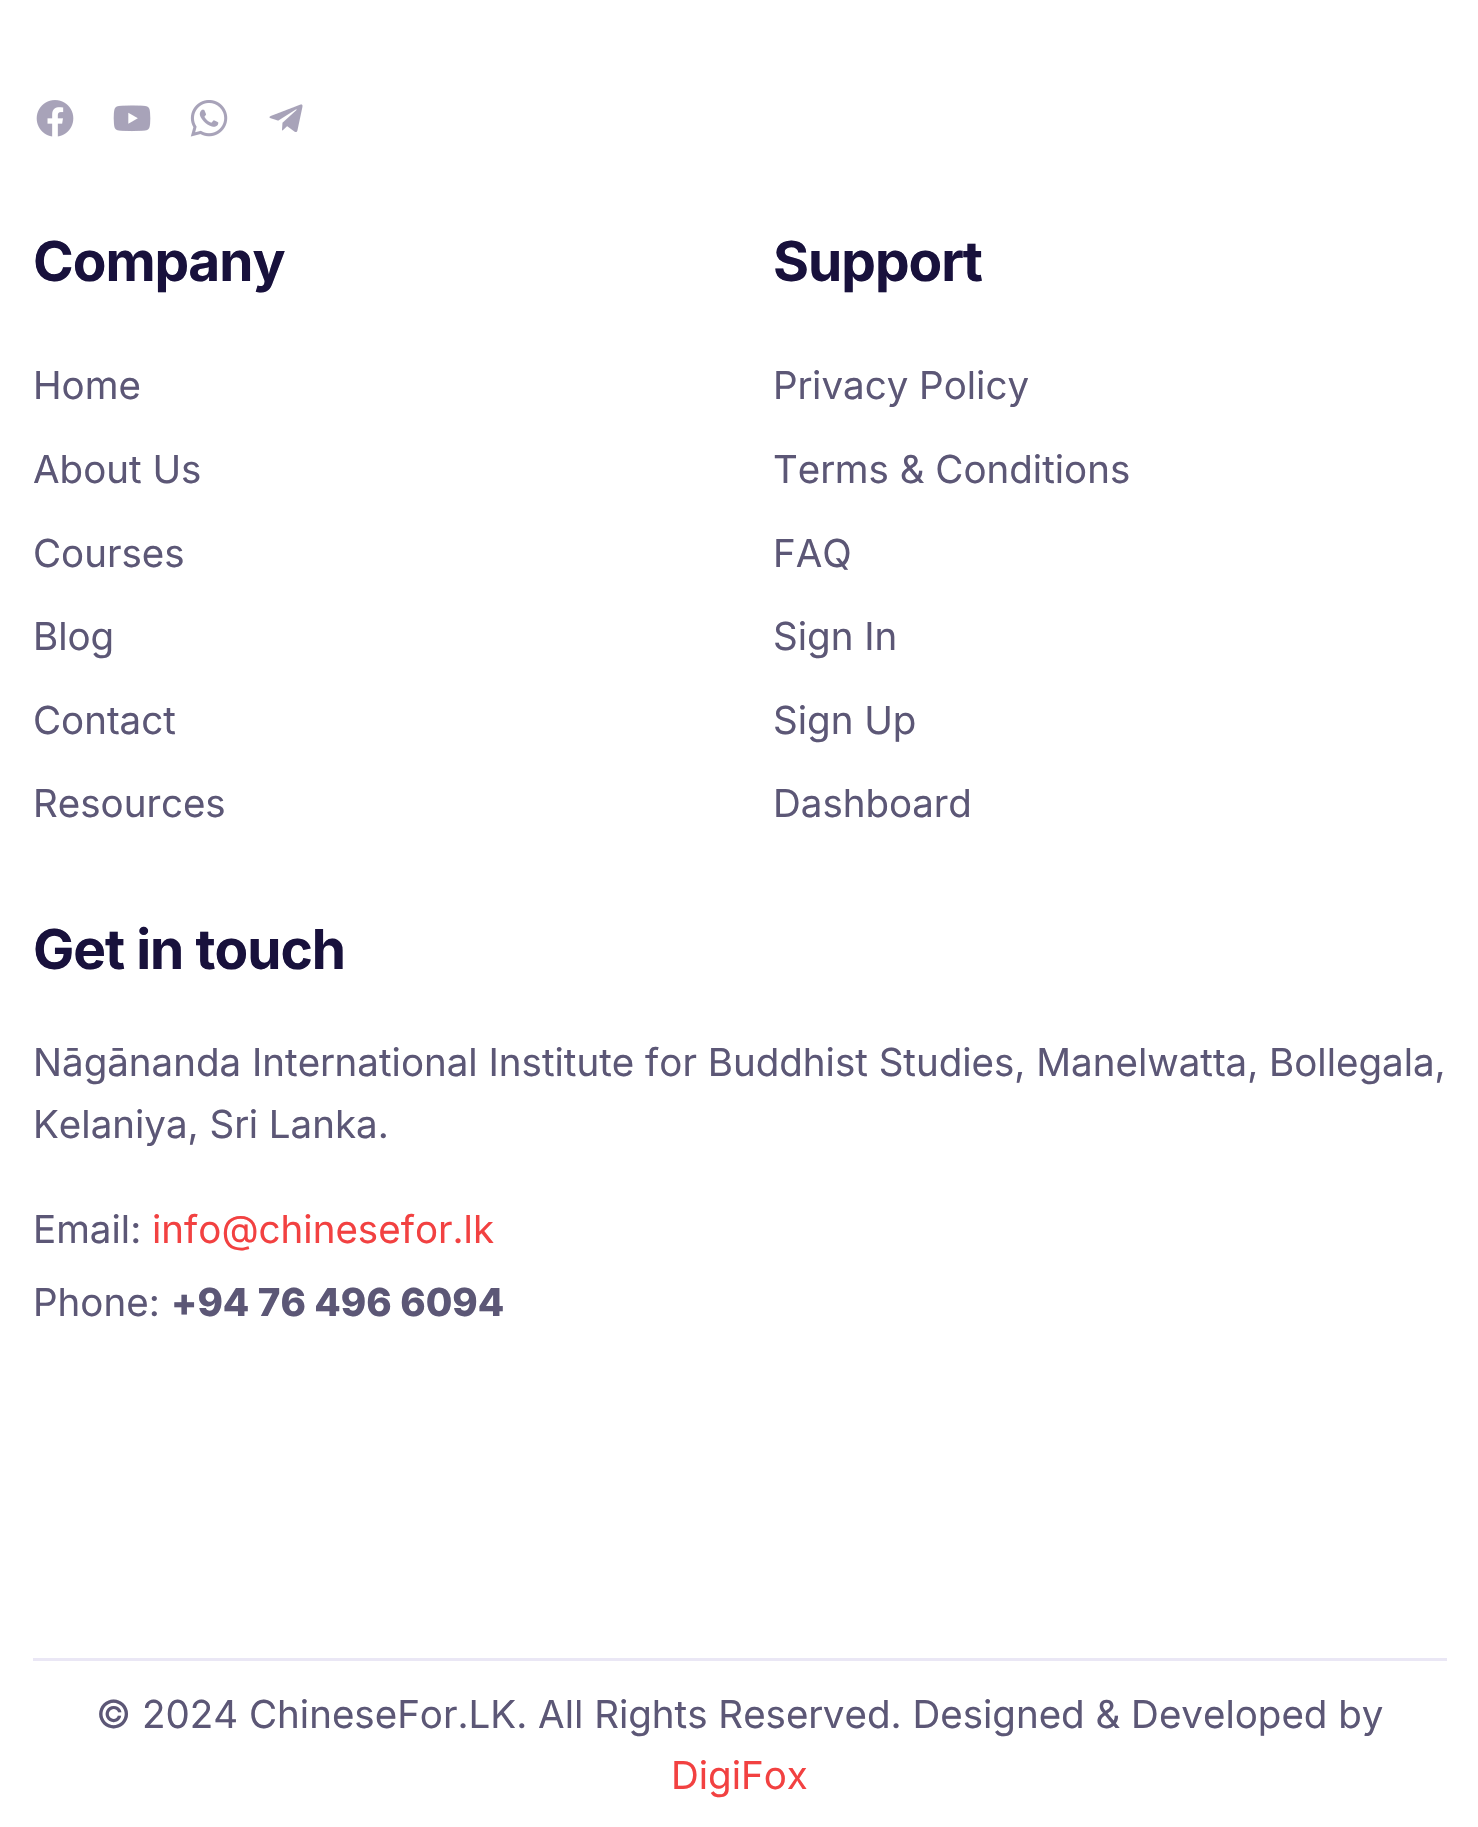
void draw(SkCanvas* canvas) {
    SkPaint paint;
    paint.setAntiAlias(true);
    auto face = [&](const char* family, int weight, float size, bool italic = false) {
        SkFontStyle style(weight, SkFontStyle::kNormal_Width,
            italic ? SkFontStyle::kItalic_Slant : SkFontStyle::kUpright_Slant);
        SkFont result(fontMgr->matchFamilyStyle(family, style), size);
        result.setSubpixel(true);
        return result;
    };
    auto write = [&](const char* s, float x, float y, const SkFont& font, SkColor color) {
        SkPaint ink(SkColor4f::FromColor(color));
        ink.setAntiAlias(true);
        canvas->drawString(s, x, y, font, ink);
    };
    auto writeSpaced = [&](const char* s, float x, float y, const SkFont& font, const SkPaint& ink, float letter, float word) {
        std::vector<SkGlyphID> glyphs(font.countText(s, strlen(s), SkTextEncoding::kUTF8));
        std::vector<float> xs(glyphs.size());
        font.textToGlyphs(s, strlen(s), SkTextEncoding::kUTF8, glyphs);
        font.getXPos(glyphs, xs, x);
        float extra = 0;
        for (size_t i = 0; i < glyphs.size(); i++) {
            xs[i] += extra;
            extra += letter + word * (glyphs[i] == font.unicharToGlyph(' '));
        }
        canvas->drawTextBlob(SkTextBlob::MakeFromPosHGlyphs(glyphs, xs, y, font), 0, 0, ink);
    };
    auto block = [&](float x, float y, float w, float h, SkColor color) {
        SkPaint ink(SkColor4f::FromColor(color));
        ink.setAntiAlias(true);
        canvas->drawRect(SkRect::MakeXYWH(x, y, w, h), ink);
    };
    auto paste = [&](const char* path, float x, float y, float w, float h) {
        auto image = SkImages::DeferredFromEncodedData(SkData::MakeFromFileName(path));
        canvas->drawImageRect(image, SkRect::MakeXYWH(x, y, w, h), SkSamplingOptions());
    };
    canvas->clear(SK_ColorWHITE);
    paste("pic1.png", 36, 100, 38, 37);
    paste("pic2.png", 113, 105, 38, 27);
    paste("pic3.png", 190, 100, 38, 37);
    paste("pic4.png", 269, 104, 34, 28);
    auto kFont1 = face("Inter", 700, 55);
    paint.setColor(SkColorSetRGB(24, 17, 60));
    writeSpaced("Company", 33, 281, kFont1, paint, -1, 0);
    auto kFont2 = face("Inter", 400, 38.5f);
    write("Home", 33, 399, kFont2, SkColorSetRGB(92, 87, 118));
    write("About Us", 33, 483, kFont2, SkColorSetRGB(92, 87, 118));
    write("Courses", 33, 567, kFont2, SkColorSetRGB(92, 87, 118));
    write("Blog", 33, 650, kFont2, SkColorSetRGB(92, 87, 118));
    write("Contact", 33, 734, kFont2, SkColorSetRGB(92, 87, 118));
    write("Resources", 33, 817, kFont2, SkColorSetRGB(92, 87, 118));
    writeSpaced("Support", 773, 281, kFont1, paint, -1, 0);
    write("Privacy Policy", 773, 399, kFont2, SkColorSetRGB(92, 87, 118));
    write("Terms & Conditions", 773, 483, kFont2, SkColorSetRGB(92, 87, 118));
    write("FAQ", 773, 567, kFont2, SkColorSetRGB(92, 87, 118));
    write("Sign In", 773, 650, kFont2, SkColorSetRGB(92, 87, 118));
    write("Sign Up", 773, 734, kFont2, SkColorSetRGB(92, 87, 118));
    write("Dashboard", 773, 817, kFont2, SkColorSetRGB(92, 87, 118));
    writeSpaced("Get in touch", 33, 969, kFont1, paint, -1, 0);
    write("Nāgānanda International Institute for Buddhist Studies, Manelwatta, Bollegala,", 33, 1076, kFont2, SkColorSetRGB(92, 87, 118));
    write("Kelaniya, Sri Lanka.", 33, 1138, kFont2, SkColorSetRGB(92, 87, 118));
    write("Email:", 33, 1243, kFont2, SkColorSetRGB(92, 87, 118));
    write("info@chinesefor.lk", 152, 1243, kFont2, SkColorSetRGB(242, 65, 65));
    write("Phone:", 33, 1316, kFont2, SkColorSetRGB(92, 87, 118));
    auto kFont3 = face("Inter", 800, 38.5f);
    write("+94 76 496 6094", 171, 1316, kFont3, SkColorSetRGB(92, 87, 118));
    block(33, 1658, 1414, 3, SkColorSetRGB(234, 231, 245));
    write("© 2024 ChineseFor.LK. All Rights Reserved. Designed & Developed by", 96, 1728, kFont2, SkColorSetRGB(92, 87, 118));
    write("DigiFox", 671, 1789, kFont2, SkColorSetRGB(242, 65, 65));
}
